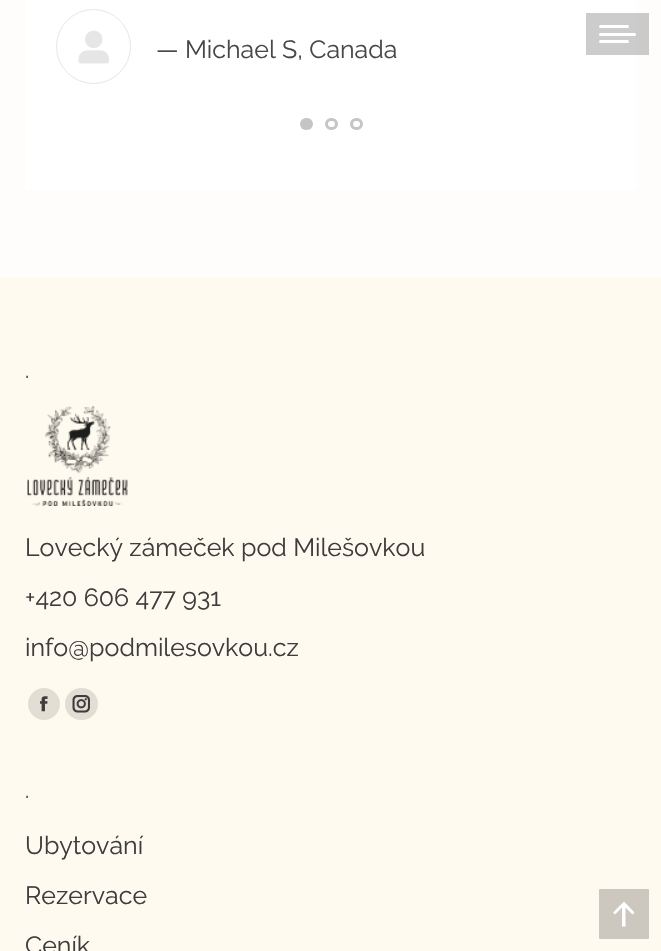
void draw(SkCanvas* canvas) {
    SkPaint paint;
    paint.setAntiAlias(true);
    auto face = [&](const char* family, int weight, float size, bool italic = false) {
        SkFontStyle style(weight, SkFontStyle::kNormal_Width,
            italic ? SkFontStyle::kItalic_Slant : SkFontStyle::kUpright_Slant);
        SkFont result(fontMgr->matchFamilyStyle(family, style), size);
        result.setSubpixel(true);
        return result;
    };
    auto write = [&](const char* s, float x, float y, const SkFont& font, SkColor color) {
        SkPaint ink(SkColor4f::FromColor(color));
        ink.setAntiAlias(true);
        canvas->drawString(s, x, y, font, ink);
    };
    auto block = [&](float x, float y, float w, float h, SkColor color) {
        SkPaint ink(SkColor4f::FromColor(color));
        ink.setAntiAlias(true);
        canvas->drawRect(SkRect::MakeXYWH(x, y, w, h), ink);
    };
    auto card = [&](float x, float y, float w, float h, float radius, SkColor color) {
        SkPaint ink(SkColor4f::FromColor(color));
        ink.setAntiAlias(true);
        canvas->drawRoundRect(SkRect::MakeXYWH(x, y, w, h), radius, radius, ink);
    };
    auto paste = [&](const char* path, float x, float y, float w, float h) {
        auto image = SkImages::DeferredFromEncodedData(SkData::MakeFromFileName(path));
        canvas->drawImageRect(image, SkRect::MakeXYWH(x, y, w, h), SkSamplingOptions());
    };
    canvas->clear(SkColorSetRGB(255, 252, 252));
    card(25, -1, 611, 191, 1, SK_ColorWHITE);
    paint.setStyle(SkPaint::kStroke_Style);
    paint.setStrokeWidth(1);
    paint.setColor(SkColorSetRGB(231, 230, 230));
    canvas->drawCircle(93.5f, 46.5f, 37, paint);
    paste("pic1.png", 78, 30, 31, 34);
    auto kFont1 = face("Raleway", 400, 25);
    write("— Michael S, Canada", 156, 58, kFont1, SkColorSetRGB(73, 72, 72));
    card(300, 118, 13, 12, 6, SkColorSetRGB(199, 197, 196));
    paint.setStrokeWidth(3);
    paint.setColor(SkColorSetRGB(199, 197, 196));
    canvas->drawRoundRect(SkRect::MakeXYWH(326.5f, 119.5f, 10, 9), 4.5f, 4.5f, paint);
    canvas->drawRoundRect(SkRect::MakeXYWH(351.5f, 119.5f, 10, 9), 4.5f, 4.5f, paint);
    block(586, 13, 63, 42, SkColorSetARGB(51, 0, 0, 0));
    card(599, 25, 30, 3, 1.5f, SK_ColorWHITE);
    card(599, 33, 37, 3, 1.5f, SK_ColorWHITE);
    card(599, 40, 30, 3, 1.5f, SK_ColorWHITE);
    block(0, 278, 661, 673, SkColorSetRGB(255, 250, 239));
    auto kFont2 = face("Raleway", 400, 22);
    write(".", 25, 378, kFont2, SkColorSetRGB(61, 61, 61));
    paste("pic2.png", 27, 406, 101, 100);
    write("Lovecký zámeček pod Milešovkou", 25, 556, kFont1, SkColorSetRGB(61, 61, 61));
    write("+420 606 477 931", 25, 606, kFont1, SkColorSetRGB(61, 61, 61));
    write("info@podmilesovkou.cz", 25, 656, kFont1, SkColorSetRGB(61, 61, 61));
    paint.setStyle(SkPaint::kFill_Style);
    paint.setColor(SkColorSetRGB(226, 222, 212));
    canvas->drawCircle(44, 704, 16, paint);
    paste("pic3.png", 40, 696, 8, 16);
    card(65, 688, 33, 32, 16, SkColorSetRGB(226, 222, 212));
    paste("pic4.png", 72, 695, 18, 18);
    write(".", 25, 798, kFont2, SkColorSetRGB(61, 61, 61));
    write("Ubytování", 25, 854, kFont1, SkColorSetRGB(61, 61, 61));
    write("Rezervace", 25, 904, kFont1, SkColorSetRGB(61, 61, 61));
    write("Ceník", 25, 954, kFont1, SkColorSetRGB(61, 61, 61));
    card(599, 889, 50, 50, 1, SkColorSetRGB(204, 200, 191));
    paint.setColor(SK_ColorWHITE);
    canvas->drawPath(SkPathBuilder().moveTo(613, 912.5f).lineTo(615, 914.5f).lineTo(622, 907.5f).lineTo(622, 926.5f).lineTo(625.5f, 926.5f).lineTo(625.5f, 907.5f).lineTo(632.5f, 914.5f).lineTo(634.5f, 912.5f).lineTo(624, 901.5f).close().detach(), paint);
}
